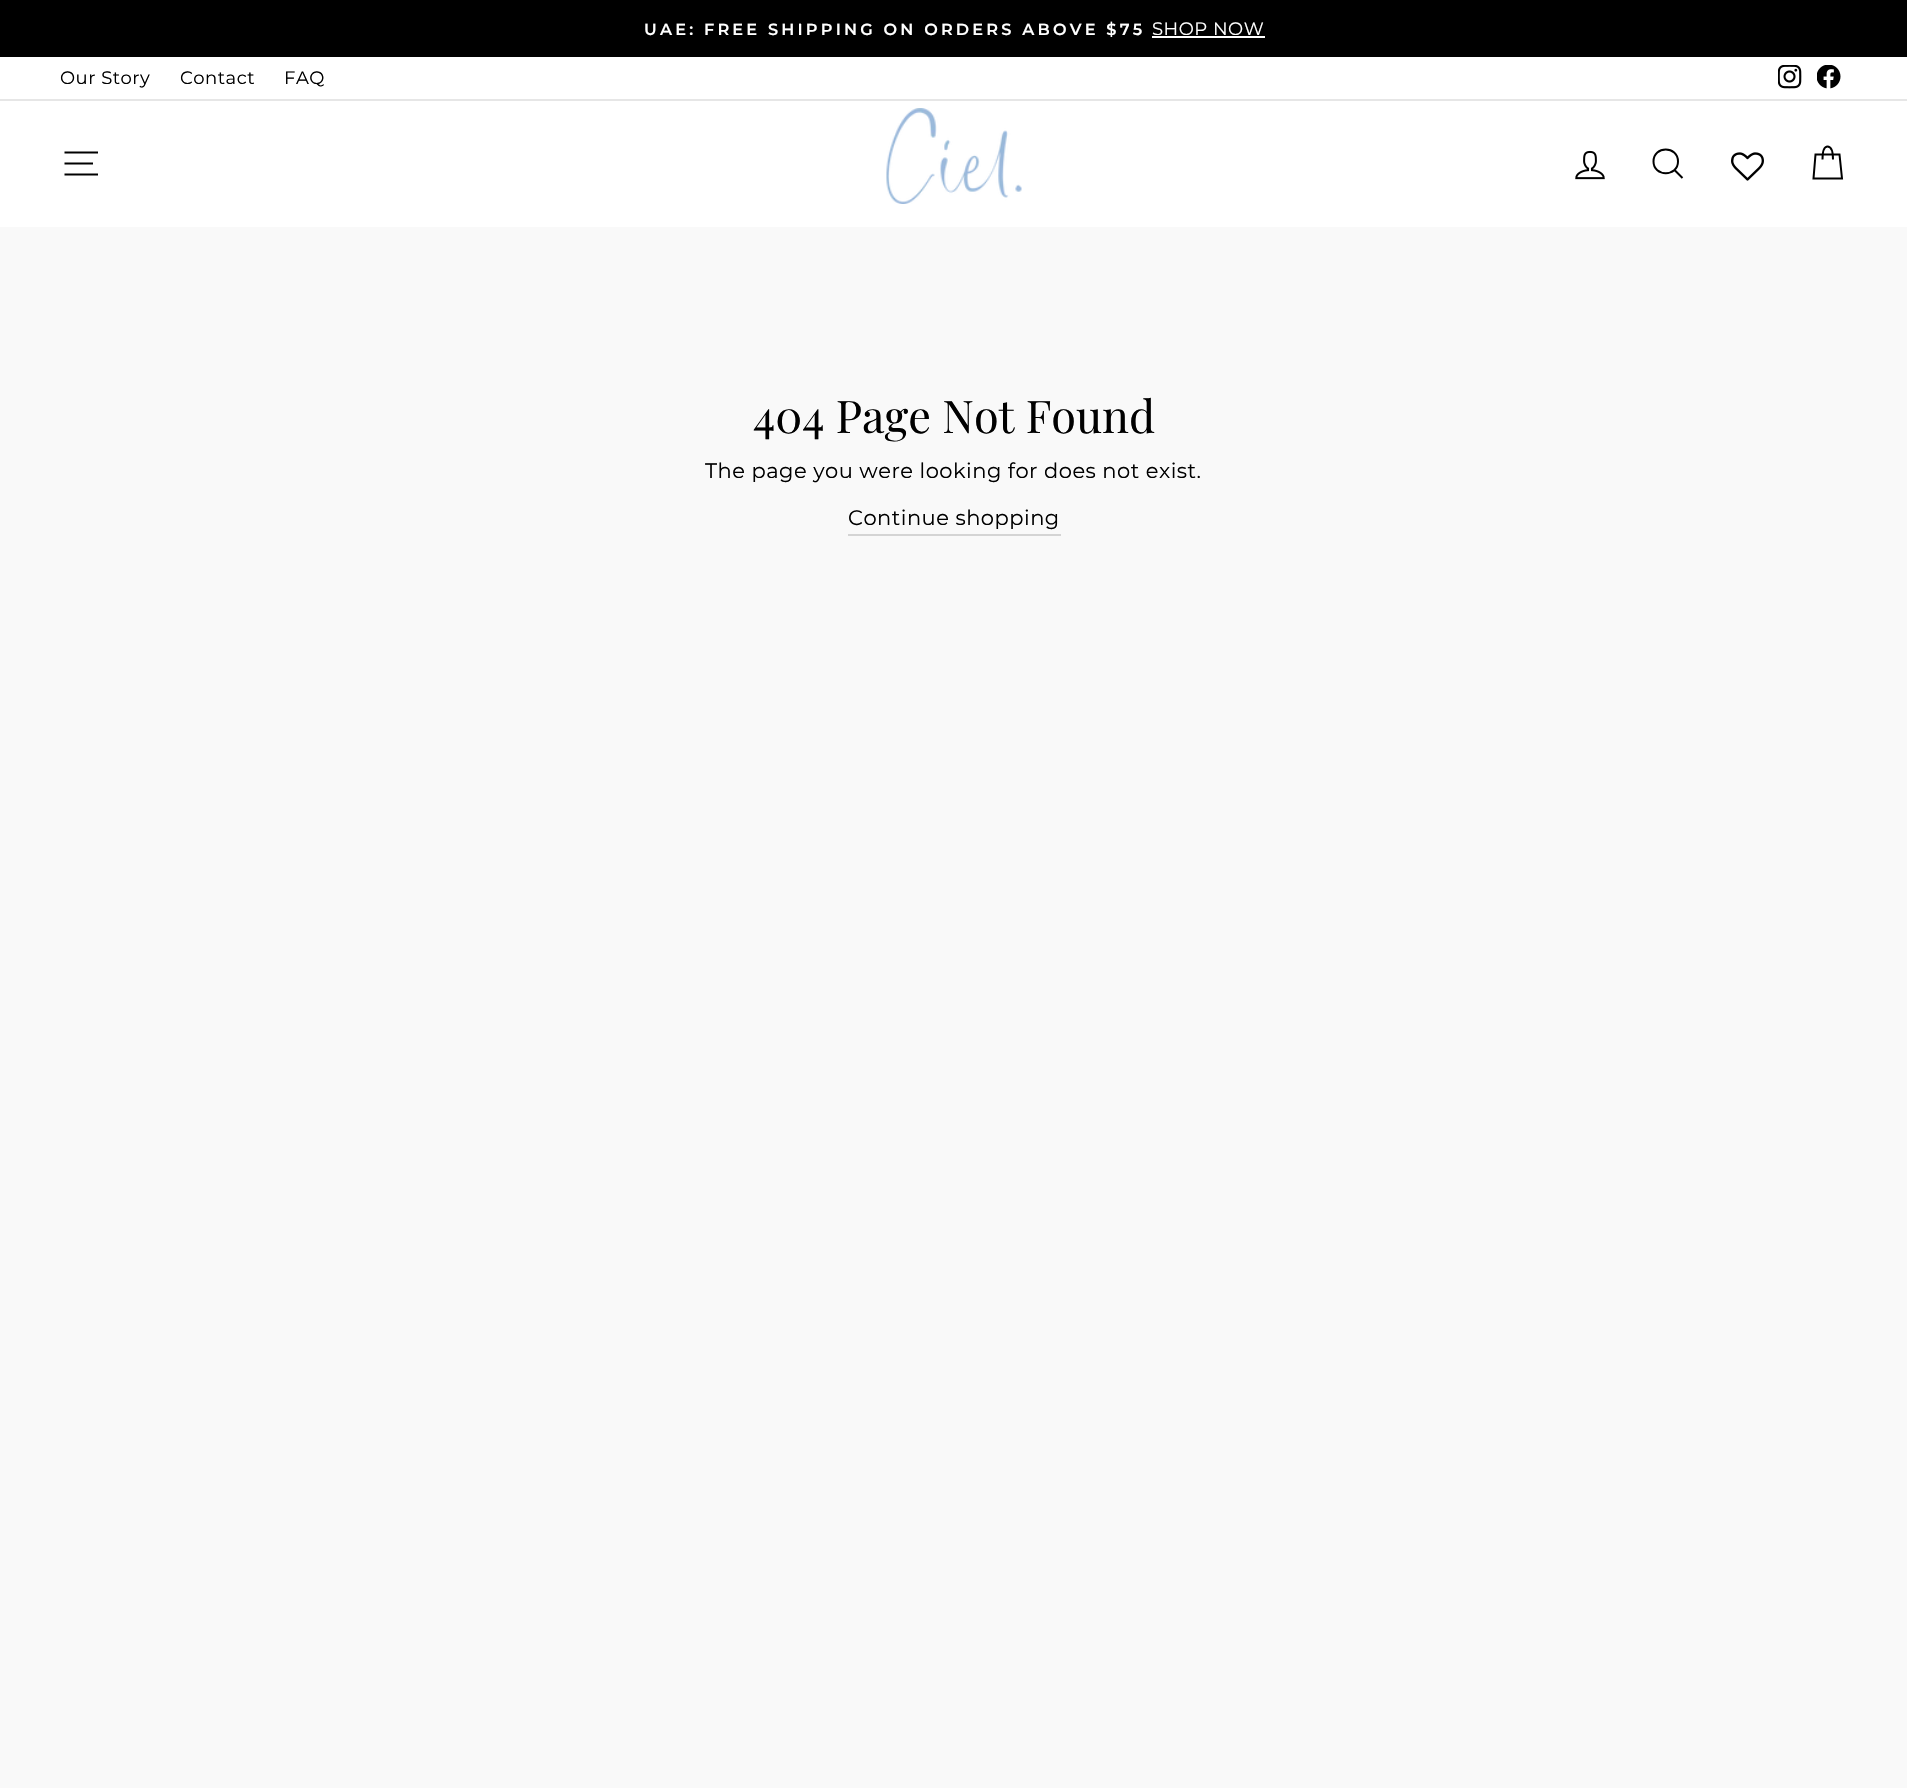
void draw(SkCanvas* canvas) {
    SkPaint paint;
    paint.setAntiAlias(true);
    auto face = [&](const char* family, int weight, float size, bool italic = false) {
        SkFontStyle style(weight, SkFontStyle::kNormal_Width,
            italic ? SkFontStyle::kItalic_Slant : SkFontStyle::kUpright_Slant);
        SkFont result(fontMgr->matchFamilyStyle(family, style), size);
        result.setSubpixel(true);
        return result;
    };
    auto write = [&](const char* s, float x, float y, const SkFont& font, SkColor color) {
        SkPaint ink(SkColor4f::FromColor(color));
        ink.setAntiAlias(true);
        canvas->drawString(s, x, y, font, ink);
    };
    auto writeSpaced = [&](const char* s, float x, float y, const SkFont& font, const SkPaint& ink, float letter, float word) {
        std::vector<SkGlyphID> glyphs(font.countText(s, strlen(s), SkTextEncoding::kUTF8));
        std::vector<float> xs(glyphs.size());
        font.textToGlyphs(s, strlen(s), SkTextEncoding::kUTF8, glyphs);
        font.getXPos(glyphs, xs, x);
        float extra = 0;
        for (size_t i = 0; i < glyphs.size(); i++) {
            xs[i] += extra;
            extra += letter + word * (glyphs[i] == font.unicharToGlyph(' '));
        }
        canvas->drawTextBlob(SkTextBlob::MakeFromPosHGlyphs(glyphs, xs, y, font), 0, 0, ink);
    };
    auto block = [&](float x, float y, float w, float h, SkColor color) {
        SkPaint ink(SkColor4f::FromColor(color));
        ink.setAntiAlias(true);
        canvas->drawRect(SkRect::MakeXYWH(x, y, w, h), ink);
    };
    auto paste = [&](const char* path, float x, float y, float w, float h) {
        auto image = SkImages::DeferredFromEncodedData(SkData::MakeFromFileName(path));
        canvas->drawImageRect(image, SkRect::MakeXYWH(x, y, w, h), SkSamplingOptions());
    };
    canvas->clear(SkColorSetRGB(249, 249, 249));
    block(0, 0, 1907, 57, SK_ColorBLACK);
    auto kFont1 = face("Montserrat", 600, 16.1f);
    paint.setColor(SK_ColorWHITE);
    writeSpaced("UAE: FREE SHIPPING ON ORDERS ABOVE $75", 644, 35, kFont1, paint, 3.2f, 0);
    auto kFont2 = face("Montserrat", 100, 18);
    writeSpaced("SHOP NOW", 1152, 35, kFont2, paint, 0.5f, 0);
    block(1152, 36, 113, 2, SK_ColorWHITE);
    block(0, 57, 1907, 42, SK_ColorWHITE);
    paint.setColor(SK_ColorBLACK);
    writeSpaced("Our Story", 60, 84, kFont2, paint, 0.5f, 0);
    writeSpaced("Contact", 180, 84, kFont2, paint, 0.5f, 0);
    writeSpaced("FAQ", 284, 84, kFont2, paint, 0.5f, 0);
    paste("pic1.png", 1778, 65, 24, 24);
    paste("pic2.png", 1817, 65, 24, 24);
    block(0, 101, 1907, 126, SK_ColorWHITE);
    block(0, 99, 1907, 2, SkColorSetRGB(230, 230, 230));
    paint.setStyle(SkPaint::kStroke_Style);
    paint.setStrokeWidth(2);
    canvas->drawPath(SkPathBuilder().moveTo(64.5f, 152.5f).lineTo(98, 152.5f).moveTo(64.5f, 163.5f).lineTo(93, 163.5f).moveTo(64.5f, 174.5f).lineTo(98, 174.5f).detach(), paint);
    paste("pic3.png", 886, 108, 136, 96);
    paste("pic4.png", 1575, 150, 30, 30);
    canvas->drawPath(SkPathBuilder().moveTo(1678, 161.5f).cubicTo(1678, 177, 1653.5f, 177, 1653.5f, 161.5f).cubicTo(1653.5f, 145.5f, 1678, 145.5f, 1678, 161.5f).close().moveTo(1682.5f, 178).lineTo(1674.5f, 170).detach(), paint);
    paste("pic5.png", 1731, 152, 33, 29);
    canvas->drawPath(SkPathBuilder().moveTo(1822.5f, 159.5f).cubicTo(1822.5f, 149, 1824.5f, 146.5f, 1827.5f, 146.5f).cubicTo(1830.5f, 146.5f, 1833, 149, 1833, 159.5f).moveTo(1815.5f, 154.5f).lineTo(1839.5f, 154.5f).lineTo(1842, 178.5f).lineTo(1813.5f, 178.5f).close().detach(), paint);
    auto kFont3 = face("Playfair Display", 400, 45);
    write("404 Page Not Found", 753, 433, kFont3, SK_ColorBLACK);
    auto kFont4 = face("Montserrat", 100, 21);
    paint.setStyle(SkPaint::kFill_Style);
    writeSpaced("The page you were looking for does not exist.", 705, 478, kFont4, paint, 0.5f, 0);
    block(848, 534, 213, 2, SkColorSetRGB(212, 212, 212));
    writeSpaced("Continue shopping", 848, 525, kFont4, paint, 0.5f, 0);
}
